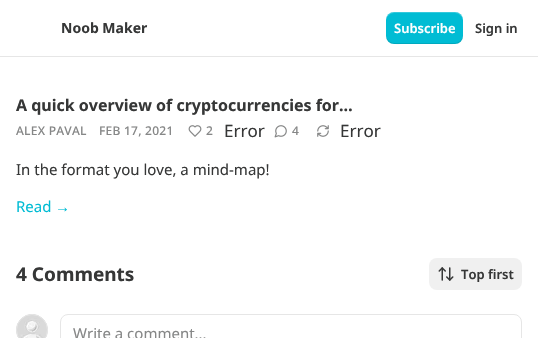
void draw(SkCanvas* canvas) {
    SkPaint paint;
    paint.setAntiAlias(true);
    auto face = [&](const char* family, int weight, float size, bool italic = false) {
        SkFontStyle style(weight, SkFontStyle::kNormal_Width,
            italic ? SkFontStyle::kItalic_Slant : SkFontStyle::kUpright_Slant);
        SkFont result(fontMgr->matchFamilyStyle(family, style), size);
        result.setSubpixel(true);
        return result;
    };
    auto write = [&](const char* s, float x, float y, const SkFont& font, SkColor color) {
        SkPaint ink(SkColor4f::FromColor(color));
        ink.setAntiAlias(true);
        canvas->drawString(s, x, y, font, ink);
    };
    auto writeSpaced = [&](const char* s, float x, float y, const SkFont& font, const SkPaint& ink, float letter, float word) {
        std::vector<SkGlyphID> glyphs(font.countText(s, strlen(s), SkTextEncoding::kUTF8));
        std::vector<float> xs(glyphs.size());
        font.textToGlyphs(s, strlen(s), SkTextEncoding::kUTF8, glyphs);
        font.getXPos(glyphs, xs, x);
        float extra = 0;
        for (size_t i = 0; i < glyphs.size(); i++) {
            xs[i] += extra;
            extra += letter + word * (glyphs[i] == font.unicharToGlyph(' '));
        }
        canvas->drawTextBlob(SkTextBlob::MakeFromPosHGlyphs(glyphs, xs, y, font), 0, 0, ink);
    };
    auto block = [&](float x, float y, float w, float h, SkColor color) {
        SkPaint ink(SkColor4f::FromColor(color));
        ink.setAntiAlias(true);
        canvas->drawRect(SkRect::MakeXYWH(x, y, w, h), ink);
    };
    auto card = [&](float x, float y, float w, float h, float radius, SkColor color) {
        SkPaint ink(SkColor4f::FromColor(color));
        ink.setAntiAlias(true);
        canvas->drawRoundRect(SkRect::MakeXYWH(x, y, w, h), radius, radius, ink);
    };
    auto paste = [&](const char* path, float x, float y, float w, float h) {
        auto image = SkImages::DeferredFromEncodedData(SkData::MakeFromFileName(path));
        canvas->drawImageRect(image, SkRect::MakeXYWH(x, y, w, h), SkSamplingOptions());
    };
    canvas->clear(SK_ColorWHITE);
    block(0, 56, 538, 1, SkColorSetRGB(230, 230, 230));
    auto kFont1 = face("Noto Sans", 700, 14);
    write("Noob Maker", 61, 33, kFont1, SkColorSetRGB(54, 55, 55));
    card(386, 12, 77, 32, 8, SkColorSetRGB(0, 188, 212));
    paint.setColor(SkColorSetARGB(26, 0, 0, 0));
    canvas->drawPath(SkPathBuilder().moveTo(386, 35).cubicTo(386, 46, 396, 44, 404, 44).lineTo(445, 44).cubicTo(453, 44, 463, 46, 463, 35).cubicTo(463, 39, 459, 43, 455, 43).lineTo(394, 43).cubicTo(390, 43, 386, 39, 386, 35).close().detach(), paint);
    paint.setColor(SkColorSetARGB(51, 255, 255, 255));
    canvas->drawPath(SkPathBuilder().moveTo(394, 13).lineTo(455, 13).cubicTo(459, 13, 463, 17, 463, 21).cubicTo(463, 10, 453, 12, 445, 12).lineTo(404, 12).cubicTo(396, 12, 386, 10, 386, 21).cubicTo(386, 17, 390, 13, 394, 13).close().detach(), paint);
    auto kFont2 = face("Noto Sans", 600, 13);
    write("Subscribe", 394, 33, kFont2, SK_ColorWHITE);
    write("Sign in", 475, 33, kFont2, SkColorSetRGB(54, 55, 55));
    auto kFont3 = face("Noto Sans", 700, 16);
    write("A quick overview of cryptocurrencies for…", 16, 111, kFont3, SkColorSetRGB(54, 55, 55));
    auto kFont4 = face("Noto Sans", 500, 12);
    paint.setColor(SkColorSetRGB(134, 135, 135));
    writeSpaced("ALEX PAVAL", 16, 135, kFont4, paint, 0.25f, 0);
    writeSpaced("FEB 17, 2021", 99, 135, kFont4, paint, 0.25f, 0);
    paste("pic1.png", 188, 125, 14, 12);
    writeSpaced("2", 206, 135, kFont4, paint, 0.25f, 0);
    auto kFont5 = face("Noto Sans", 400, 17);
    write("Error", 224, 137, kFont5, SkColorSetRGB(54, 55, 55));
    paste("pic2.png", 274, 125, 13, 13);
    writeSpaced("4", 292, 135, kFont4, paint, 0.25f, 0);
    paste("pic3.png", 317, 125, 12, 12);
    write("Error", 340, 137, kFont5, SkColorSetRGB(54, 55, 55));
    auto kFont6 = face("Noto Sans", 400, 15);
    write("In the format you love, a mind-map!", 16, 175, kFont6, SkColorSetRGB(54, 55, 55));
    write("Read", 16, 212, kFont6, SkColorSetRGB(0, 188, 212));
    auto kFont7 = face("Liberation Sans", 400, 15);
    write("→", 55, 212, kFont7, SkColorSetRGB(0, 188, 212));
    auto kFont8 = face("Noto Sans", 700, 19);
    write("4 Comments", 16, 281, kFont8, SkColorSetRGB(54, 55, 55));
    card(429, 258, 93, 32, 8, SkColorSetRGB(240, 240, 240));
    paste("pic4.png", 438, 267, 16, 14);
    write("Top first", 461, 279, kFont2, SkColorSetRGB(54, 55, 55));
    paint.setStyle(SkPaint::kStroke_Style);
    paint.setStrokeWidth(1);
    paint.setColor(SkColorSetRGB(230, 230, 230));
    canvas->drawCircle(32, 330, 15.5f, paint);
    paste("pic5.png", 16, 314, 32, 24);
    canvas->drawCircle(32, 330, 15.5f, paint);
    canvas->drawRoundRect(SkRect::MakeXYWH(60.5f, 314.5f, 461, 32), 7.5f, 7.5f, paint);
    write("Write a comment...", 73, 339, kFont6, SkColorSetRGB(134, 135, 135));
}
